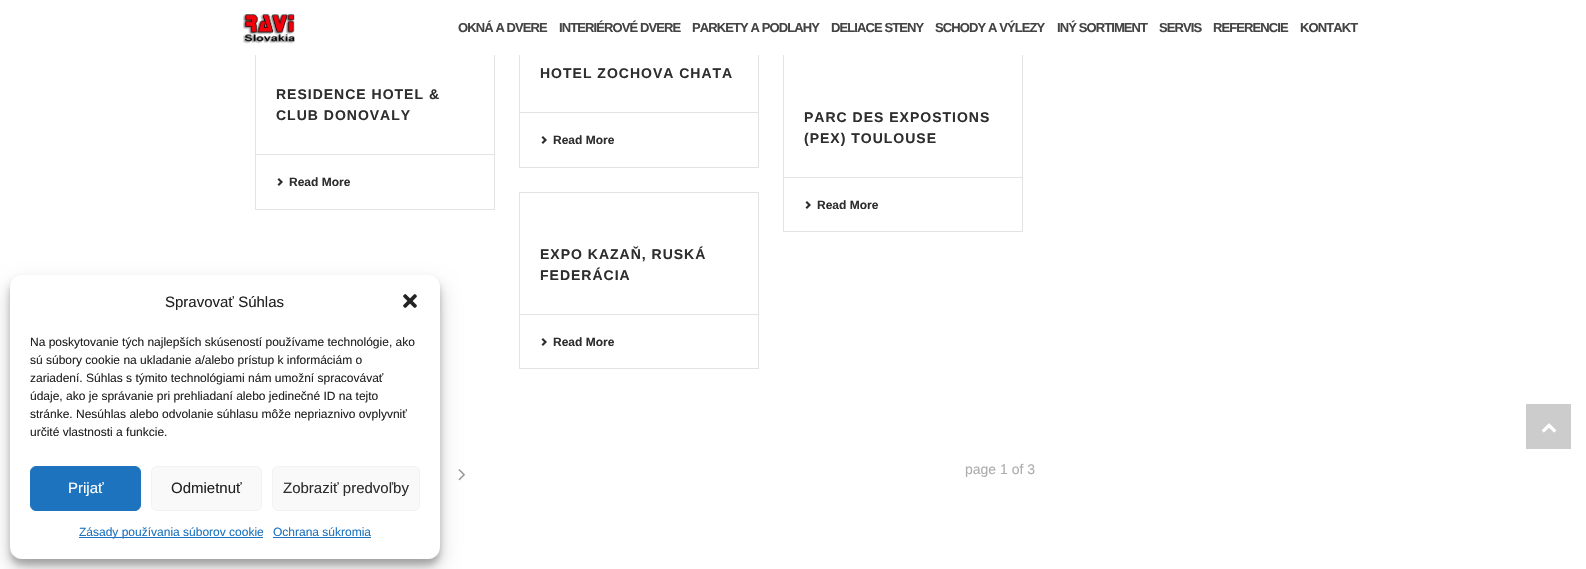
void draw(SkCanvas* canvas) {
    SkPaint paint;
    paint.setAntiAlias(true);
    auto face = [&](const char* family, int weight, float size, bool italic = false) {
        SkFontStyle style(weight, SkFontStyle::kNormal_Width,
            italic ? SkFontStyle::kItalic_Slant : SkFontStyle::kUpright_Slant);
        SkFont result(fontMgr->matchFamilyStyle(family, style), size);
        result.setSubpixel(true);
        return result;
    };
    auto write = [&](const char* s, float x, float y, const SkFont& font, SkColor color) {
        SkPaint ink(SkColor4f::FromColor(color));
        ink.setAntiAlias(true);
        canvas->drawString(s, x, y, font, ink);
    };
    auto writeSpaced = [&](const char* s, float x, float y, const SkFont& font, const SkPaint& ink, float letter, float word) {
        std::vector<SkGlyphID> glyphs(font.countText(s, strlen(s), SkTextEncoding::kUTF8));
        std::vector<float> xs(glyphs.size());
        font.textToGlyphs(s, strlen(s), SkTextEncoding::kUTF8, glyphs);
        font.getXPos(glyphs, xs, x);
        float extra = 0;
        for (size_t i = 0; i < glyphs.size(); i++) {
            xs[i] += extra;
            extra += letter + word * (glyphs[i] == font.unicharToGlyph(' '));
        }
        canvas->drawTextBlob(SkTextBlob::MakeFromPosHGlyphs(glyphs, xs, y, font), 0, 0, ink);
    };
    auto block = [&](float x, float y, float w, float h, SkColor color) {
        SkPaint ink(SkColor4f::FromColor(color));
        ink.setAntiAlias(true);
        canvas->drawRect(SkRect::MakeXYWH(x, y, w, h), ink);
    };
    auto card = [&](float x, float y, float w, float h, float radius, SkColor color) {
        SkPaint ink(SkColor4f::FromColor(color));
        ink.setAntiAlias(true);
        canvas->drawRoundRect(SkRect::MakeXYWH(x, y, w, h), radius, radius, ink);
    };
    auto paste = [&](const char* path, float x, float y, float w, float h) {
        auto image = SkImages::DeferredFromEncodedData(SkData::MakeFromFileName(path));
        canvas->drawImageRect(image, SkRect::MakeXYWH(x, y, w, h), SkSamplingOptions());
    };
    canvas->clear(SK_ColorWHITE);
    paint.setColor(SkColorSetARGB(59, 0, 0, 0));
    paint.setMaskFilter(SkMaskFilter::MakeBlur(kNormal_SkBlurStyle, 3));
    canvas->drawRoundRect(SkRect::MakeXYWH(10, 281, 430, 284), 12, 12, paint);
    paint.setMaskFilter(nullptr);
    paste("pic4.png", 458, 469, 7, 12);
    paint.setColor(SkColorSetARGB(48, 0, 0, 0));
    paint.setMaskFilter(SkMaskFilter::MakeBlur(kNormal_SkBlurStyle, 10));
    canvas->drawRoundRect(SkRect::MakeXYWH(10, 285, 430, 284), 12, 12, paint);
    paint.setMaskFilter(nullptr);
    card(10, 275, 430, 284, 12, SK_ColorWHITE);
    auto kFont1 = face("Liberation Sans", 400, 15);
    write("Spravovať Súhlas", 165, 307, kFont1, SkColorSetRGB(34, 34, 34));
    paste("pic1.png", 403, 294, 14, 14);
    auto kFont2 = face("Liberation Sans", 400, 12);
    write("Na poskytovanie tých najlepších skúseností používame technológie, ako", 30, 346, kFont2, SkColorSetRGB(34, 34, 34));
    write("sú súbory cookie na ukladanie a/alebo prístup k informáciám o", 30, 364, kFont2, SkColorSetRGB(34, 34, 34));
    write("zariadení. Súhlas s týmito technológiami nám umožní spracovávať", 30, 382, kFont2, SkColorSetRGB(34, 34, 34));
    write("údaje, ako je správanie pri prehliadaní alebo jedinečné ID na tejto", 30, 400, kFont2, SkColorSetRGB(34, 34, 34));
    write("stránke. Nesúhlas alebo odvolanie súhlasu môže nepriaznivo ovplyvniť", 30, 418, kFont2, SkColorSetRGB(34, 34, 34));
    write("určité vlastnosti a funkcie.", 30, 436, kFont2, SkColorSetRGB(34, 34, 34));
    paint.setColor(SkColorSetRGB(30, 115, 190));
    canvas->drawRoundRect(SkRect::MakeXYWH(30.5f, 466.5f, 110, 44), 5.5f, 5.5f, paint);
    paint.setStyle(SkPaint::kStroke_Style);
    paint.setStrokeWidth(1);
    canvas->drawRoundRect(SkRect::MakeXYWH(30.5f, 466.5f, 110, 44), 5.5f, 5.5f, paint);
    write("Prijať", 68, 493, kFont1, SK_ColorWHITE);
    paint.setStyle(SkPaint::kFill_Style);
    paint.setColor(SkColorSetRGB(249, 249, 249));
    canvas->drawRoundRect(SkRect::MakeXYWH(151.5f, 466.5f, 110, 44), 5.5f, 5.5f, paint);
    paint.setStyle(SkPaint::kStroke_Style);
    paint.setColor(SkColorSetRGB(242, 242, 242));
    canvas->drawRoundRect(SkRect::MakeXYWH(151.5f, 466.5f, 110, 44), 5.5f, 5.5f, paint);
    write("Odmietnuť", 171, 493, kFont1, SkColorSetRGB(34, 34, 34));
    paint.setStyle(SkPaint::kFill_Style);
    paint.setColor(SkColorSetRGB(249, 249, 249));
    canvas->drawRoundRect(SkRect::MakeXYWH(272.5f, 466.5f, 147, 44), 5.5f, 5.5f, paint);
    paint.setStyle(SkPaint::kStroke_Style);
    paint.setColor(SkColorSetRGB(242, 242, 242));
    canvas->drawRoundRect(SkRect::MakeXYWH(272.5f, 466.5f, 147, 44), 5.5f, 5.5f, paint);
    write("Zobraziť predvoľby", 283, 493, kFont1, SkColorSetRGB(46, 46, 46));
    block(79, 537, 184, 1, SkColorSetRGB(30, 115, 190));
    write("Zásady používania súborov cookie", 79, 536, kFont2, SkColorSetRGB(30, 115, 190));
    write("Ochrana súkromia", 273, 536, kFont2, SkColorSetRGB(30, 115, 190));
    block(273, 537, 98, 1, SkColorSetRGB(30, 115, 190));
    paint.setColor(SkColorSetRGB(227, 227, 227));
    canvas->drawRect(SkRect::MakeXYWH(255.5f, 33.5f, 239, 176), paint);
    canvas->drawRect(SkRect::MakeXYWH(519.5f, 12.5f, 239, 155), paint);
    canvas->drawRect(SkRect::MakeXYWH(783.5f, 33.5f, 239, 198), paint);
    block(255, 12, 768, 43, SK_ColorWHITE);
    paste("pic2.png", 243, 14, 52, 30);
    auto kFont3 = face("Liberation Sans", 700, 13);
    paint.setStyle(SkPaint::kFill_Style);
    paint.setColor(SkColorSetRGB(68, 68, 68));
    writeSpaced("OKNÁ A DVERE", 458, 32, kFont3, paint, -0.9f, 0);
    writeSpaced("INTERIÉROVÉ DVERE", 559, 32, kFont3, paint, -0.9f, 0);
    writeSpaced("PARKETY A PODLAHY", 692, 32, kFont3, paint, -0.9f, 0);
    writeSpaced("DELIACE STENY", 831, 32, kFont3, paint, -0.9f, 0);
    writeSpaced("SCHODY A VÝLEZY", 935, 32, kFont3, paint, -0.9f, 0);
    writeSpaced("INÝ SORTIMENT", 1057, 32, kFont3, paint, -0.9f, 0);
    writeSpaced("SERVIS", 1159, 32, kFont3, paint, -0.9f, 0);
    writeSpaced("REFERENCIE", 1213, 32, kFont3, paint, -0.9f, 0);
    writeSpaced("KONTAKT", 1300, 32, kFont3, paint, -0.9f, 0);
    auto kFont4 = face("Liberation Sans", 700, 14);
    paint.setColor(SkColorSetRGB(46, 46, 46));
    writeSpaced("RESIDENCE HOTEL &", 276, 99, kFont4, paint, 1, 0);
    writeSpaced("CLUB DONOVALY", 276, 120, kFont4, paint, 1, 0);
    block(256, 154, 238, 1, SkColorSetRGB(227, 227, 227));
    paste("pic3.png", 277, 178, 6, 8);
    auto kFont5 = face("Liberation Sans", 700, 12);
    write("Read More", 289, 186, kFont5, SkColorSetRGB(46, 46, 46));
    writeSpaced("HOTEL ZOCHOVA CHATA", 540, 78, kFont4, paint, 1, 0);
    block(520, 112, 238, 1, SkColorSetRGB(227, 227, 227));
    paste("pic3.png", 541, 136, 6, 8);
    write("Read More", 553, 144, kFont5, SkColorSetRGB(46, 46, 46));
    writeSpaced("PARC DES EXPOSTIONS", 804, 122, kFont4, paint, 1, 0);
    writeSpaced("(PEX) TOULOUSE", 804, 143, kFont4, paint, 1, 0);
    block(784, 177, 238, 1, SkColorSetRGB(227, 227, 227));
    paste("pic3.png", 805, 201, 6, 8);
    write("Read More", 817, 209, kFont5, SkColorSetRGB(46, 46, 46));
    paint.setStyle(SkPaint::kStroke_Style);
    paint.setColor(SkColorSetRGB(227, 227, 227));
    canvas->drawRect(SkRect::MakeXYWH(519.5f, 192.5f, 239, 176), paint);
    paint.setStyle(SkPaint::kFill_Style);
    paint.setColor(SkColorSetRGB(46, 46, 46));
    writeSpaced("EXPO KAZAŇ, RUSKÁ", 540, 259, kFont4, paint, 1, 0);
    writeSpaced("FEDERÁCIA", 540, 280, kFont4, paint, 1, 0);
    block(520, 314, 238, 1, SkColorSetRGB(227, 227, 227));
    paste("pic3.png", 541, 338, 6, 8);
    write("Read More", 553, 346, kFont5, SkColorSetRGB(46, 46, 46));
    auto kFont6 = face("Liberation Sans", 400, 14);
    write("page 1 of 3", 965, 474, kFont6, SkColorSetRGB(173, 173, 173));
    block(1526, 404, 45, 45, SkColorSetRGB(204, 204, 204));
    paste("pic5.png", 1541, 423, 16, 10);
}
